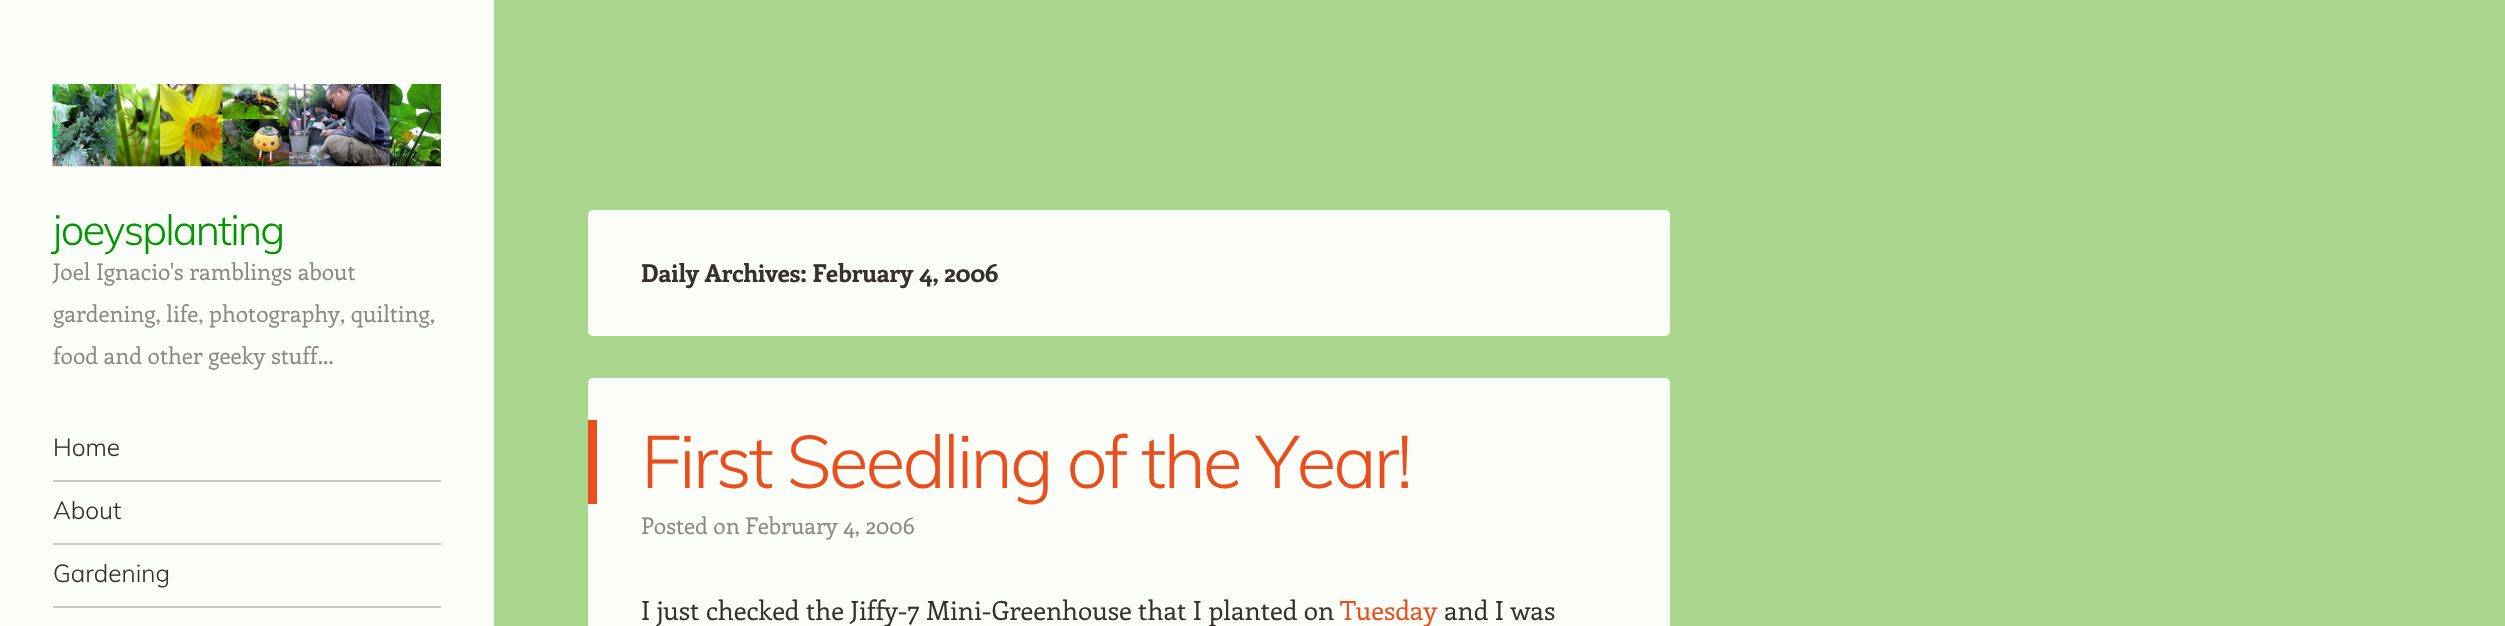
void draw(SkCanvas* canvas) {
    SkPaint paint;
    paint.setAntiAlias(true);
    auto face = [&](const char* family, int weight, float size, bool italic = false) {
        SkFontStyle style(weight, SkFontStyle::kNormal_Width,
            italic ? SkFontStyle::kItalic_Slant : SkFontStyle::kUpright_Slant);
        SkFont result(fontMgr->matchFamilyStyle(family, style), size);
        result.setSubpixel(true);
        return result;
    };
    auto write = [&](const char* s, float x, float y, const SkFont& font, SkColor color) {
        SkPaint ink(SkColor4f::FromColor(color));
        ink.setAntiAlias(true);
        canvas->drawString(s, x, y, font, ink);
    };
    auto writeSpaced = [&](const char* s, float x, float y, const SkFont& font, const SkPaint& ink, float letter, float word) {
        std::vector<SkGlyphID> glyphs(font.countText(s, strlen(s), SkTextEncoding::kUTF8));
        std::vector<float> xs(glyphs.size());
        font.textToGlyphs(s, strlen(s), SkTextEncoding::kUTF8, glyphs);
        font.getXPos(glyphs, xs, x);
        float extra = 0;
        for (size_t i = 0; i < glyphs.size(); i++) {
            xs[i] += extra;
            extra += letter + word * (glyphs[i] == font.unicharToGlyph(' '));
        }
        canvas->drawTextBlob(SkTextBlob::MakeFromPosHGlyphs(glyphs, xs, y, font), 0, 0, ink);
    };
    auto block = [&](float x, float y, float w, float h, SkColor color) {
        SkPaint ink(SkColor4f::FromColor(color));
        ink.setAntiAlias(true);
        canvas->drawRect(SkRect::MakeXYWH(x, y, w, h), ink);
    };
    auto card = [&](float x, float y, float w, float h, float radius, SkColor color) {
        SkPaint ink(SkColor4f::FromColor(color));
        ink.setAntiAlias(true);
        canvas->drawRoundRect(SkRect::MakeXYWH(x, y, w, h), radius, radius, ink);
    };
    auto paste = [&](const char* path, float x, float y, float w, float h) {
        auto image = SkImages::DeferredFromEncodedData(SkData::MakeFromFileName(path));
        canvas->drawImageRect(image, SkRect::MakeXYWH(x, y, w, h), SkSamplingOptions());
    };
    canvas->clear(SkColorSetRGB(171, 214, 141));
    block(0, 0, 494, 626, SkColorSetRGB(251, 253, 249));
    paste("pic1.png", 52, 84, 389, 83);
    auto kFont1 = face("Muli", 300, 42);
    paint.setColor(SkColorSetRGB(2, 150, 0));
    writeSpaced("joeysplanting", 53, 245, kFont1, paint, -1.9f, 0);
    auto kFont2 = face("Enriqueta", 400, 22.75f);
    write("Joel Ignacio's ramblings about", 53, 280, kFont2, SkColorSetRGB(140, 136, 133));
    write("gardening, life, photography, quilting,", 53, 322, kFont2, SkColorSetRGB(140, 136, 133));
    write("food and other geeky stuff…", 53, 364, kFont2, SkColorSetRGB(140, 136, 133));
    block(53, 480, 388, 2, SkColorSetRGB(201, 202, 199));
    auto kFont3 = face("Muli", 300, 24.5f);
    write("Home", 53, 456, kFont3, SkColorSetRGB(54, 49, 45));
    block(53, 543, 388, 2, SkColorSetRGB(201, 202, 199));
    write("About", 53, 519, kFont3, SkColorSetRGB(54, 49, 45));
    block(53, 606, 388, 2, SkColorSetRGB(201, 202, 199));
    write("Gardening", 53, 582, kFont3, SkColorSetRGB(54, 49, 45));
    card(588, 210, 1082, 126, 5, SkColorSetRGB(251, 253, 249));
    auto kFont4 = face("Enriqueta", 700, 24.5f);
    write("Daily Archives: February 4, 2006", 641, 282, kFont4, SkColorSetRGB(54, 49, 45));
    card(588, 378, 1082, 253, 5, SkColorSetRGB(251, 253, 249));
    block(588, 420, 9, 84, SkColorSetRGB(233, 79, 29));
    auto kFont5 = face("Muli", 300, 73.5f);
    paint.setColor(SkColorSetRGB(233, 79, 29));
    writeSpaced("First Seedling of the Year!", 641, 488, kFont5, paint, -2.95f, 0);
    write("Posted on February 4, 2006", 641, 534, kFont2, SkColorSetRGB(140, 136, 133));
    auto kFont6 = face("Enriqueta", 400, 26.25f);
    write("I just checked the Jiffy-7 Mini-Greenhouse that I planted on", 641, 620, kFont6, SkColorSetRGB(54, 49, 45));
    write("Tuesday", 1340, 620, kFont6, SkColorSetRGB(233, 79, 29));
    write("and I was", 1444, 620, kFont6, SkColorSetRGB(54, 49, 45));
}
